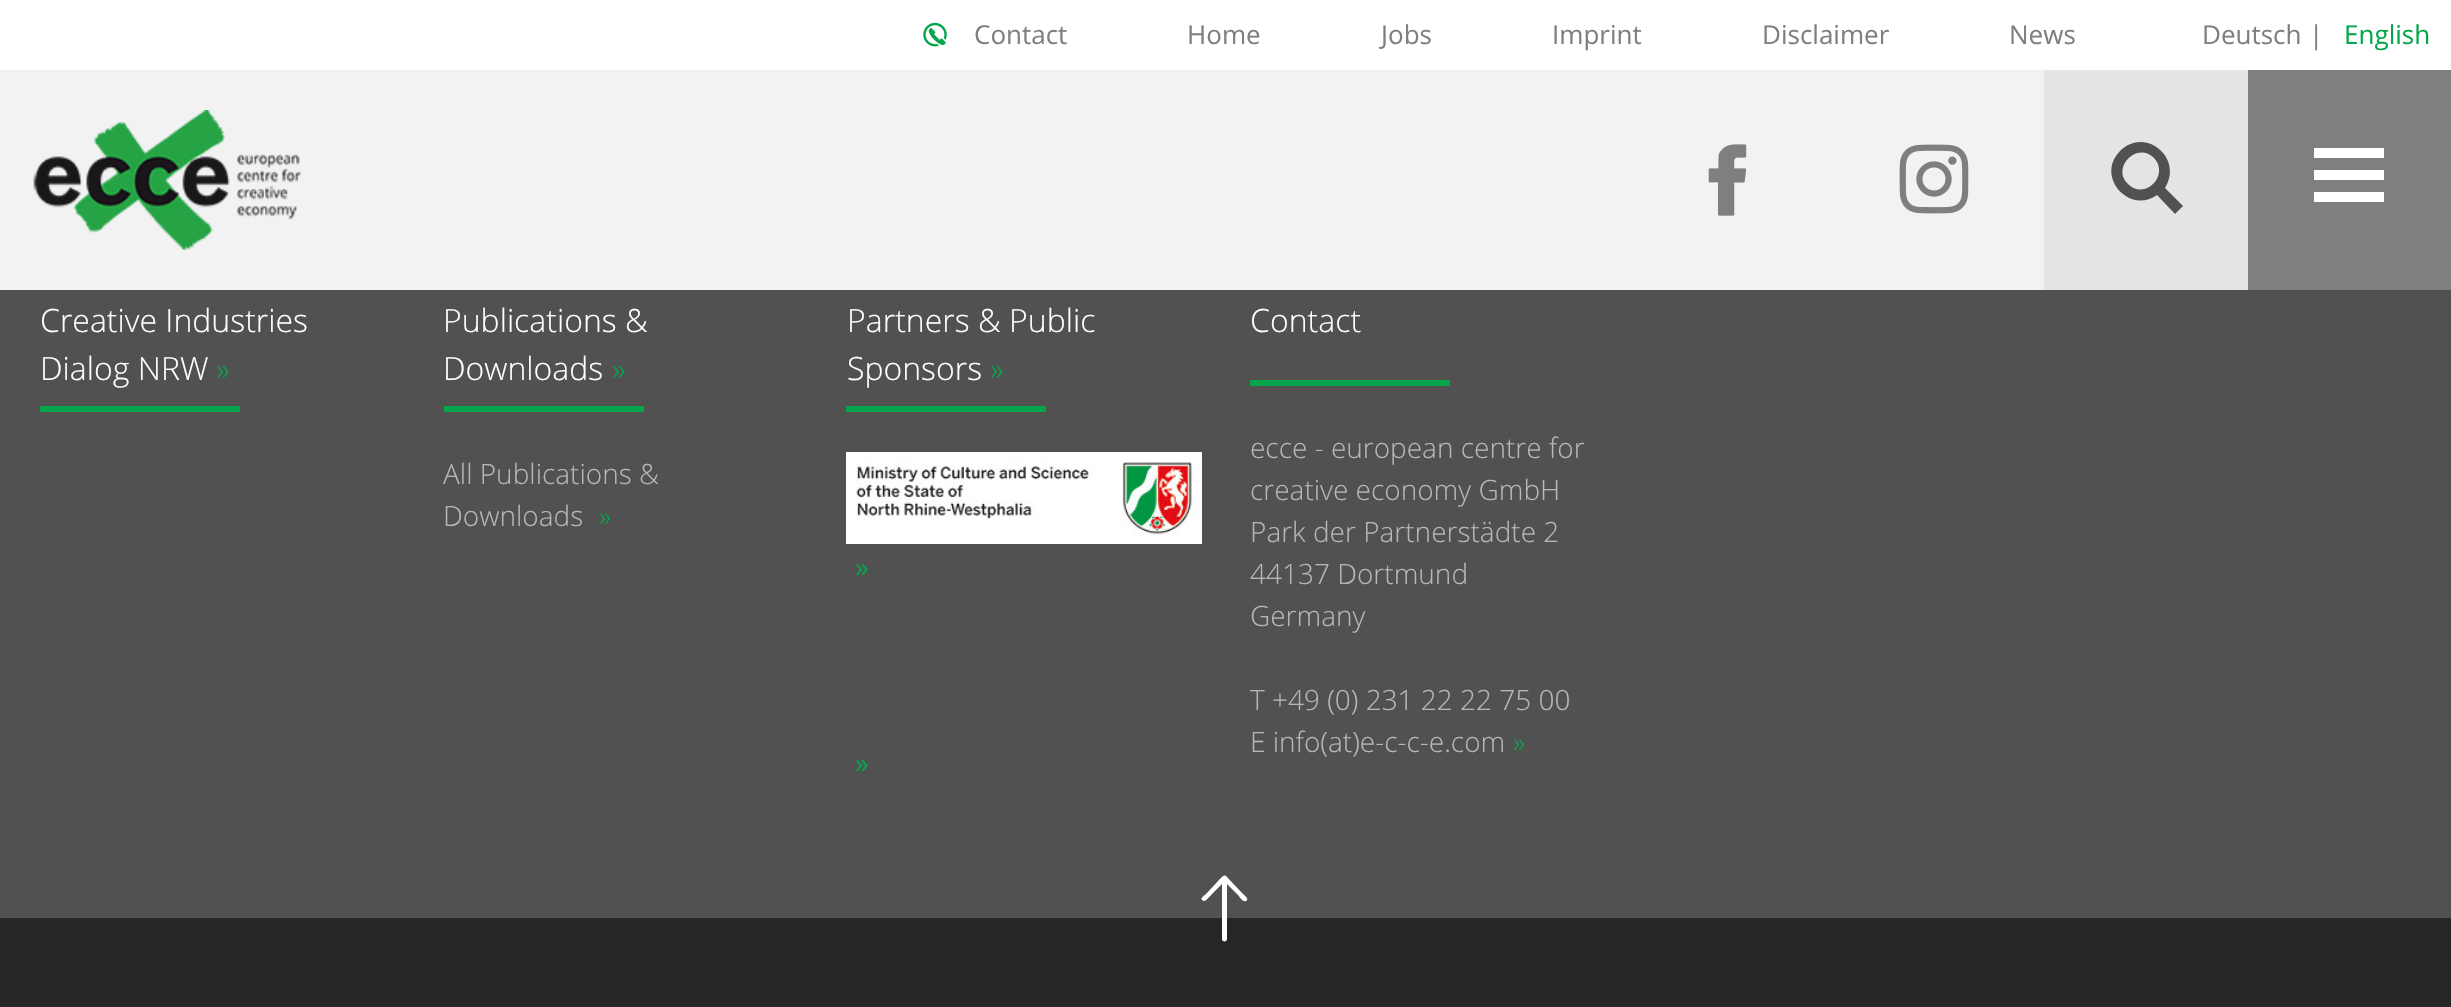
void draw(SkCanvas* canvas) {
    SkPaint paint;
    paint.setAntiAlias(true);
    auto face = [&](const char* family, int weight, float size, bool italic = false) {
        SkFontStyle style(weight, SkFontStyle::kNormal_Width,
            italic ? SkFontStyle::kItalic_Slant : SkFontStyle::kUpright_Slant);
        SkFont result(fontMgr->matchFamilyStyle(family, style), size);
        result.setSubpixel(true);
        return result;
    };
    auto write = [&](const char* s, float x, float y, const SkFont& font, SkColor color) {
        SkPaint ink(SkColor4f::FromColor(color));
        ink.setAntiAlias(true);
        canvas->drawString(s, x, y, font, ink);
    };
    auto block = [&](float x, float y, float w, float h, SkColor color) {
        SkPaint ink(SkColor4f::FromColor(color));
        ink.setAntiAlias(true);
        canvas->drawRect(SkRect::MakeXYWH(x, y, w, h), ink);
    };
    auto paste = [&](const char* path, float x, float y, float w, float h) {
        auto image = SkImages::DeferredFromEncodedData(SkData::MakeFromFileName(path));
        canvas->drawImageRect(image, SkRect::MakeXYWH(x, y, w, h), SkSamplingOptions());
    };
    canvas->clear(SkColorSetRGB(81, 81, 81));
    block(0, 0, 2451, 70, SK_ColorWHITE);
    paste("pic1.png", 923, 22, 24, 25);
    auto kFont1 = face("Open Sans", 400, 26);
    write("Contact", 974, 44, kFont1, SkColorSetRGB(127, 127, 127));
    write("Home", 1187, 44, kFont1, SkColorSetRGB(127, 127, 127));
    write("Jobs", 1381, 44, kFont1, SkColorSetRGB(127, 127, 127));
    write("Imprint", 1552, 44, kFont1, SkColorSetRGB(127, 127, 127));
    write("Disclaimer", 1762, 44, kFont1, SkColorSetRGB(127, 127, 127));
    write("News", 2009, 44, kFont1, SkColorSetRGB(127, 127, 127));
    write("Deutsch", 2202, 44, kFont1, SkColorSetRGB(127, 127, 127));
    write("|", 2309, 44, kFont1, SkColorSetRGB(127, 127, 127));
    write("English", 2344, 44, kFont1, SkColorSetRGB(4, 166, 75));
    block(0, 70, 2044, 220, SkColorSetRGB(242, 242, 242));
    paste("pic2.png", 33, 110, 269, 140);
    paste("pic3.png", 1708, 144, 39, 72);
    paste("pic4.png", 1899, 144, 70, 70);
    block(2044, 70, 204, 220, SkColorSetRGB(228, 228, 228));
    paint.setColor(SkColorSetRGB(81, 81, 81));
    canvas->drawPath(SkPathBuilder().moveTo(2120, 151).cubicTo(2095, 176, 2129, 215, 2157, 195).lineTo(2175, 214).lineTo(2183, 206).lineTo(2165, 188).cubicTo(2184, 158, 2145, 126, 2120, 151).close().moveTo(2154, 158).cubicTo(2170, 175, 2145, 201, 2128, 184).cubicTo(2111, 168, 2137, 141, 2154, 158).close().detach(), paint);
    block(2248, 70, 203, 220, SkColorSetRGB(127, 127, 127));
    block(2314, 148, 70, 10, SK_ColorWHITE);
    block(2314, 170, 70, 10, SK_ColorWHITE);
    block(2314, 192, 70, 10, SK_ColorWHITE);
    auto kFont2 = face("Open Sans", 300, 32);
    write("Creative Industries", 40, 332, kFont2, SK_ColorWHITE);
    write("Dialog NRW", 40, 380, kFont2, SK_ColorWHITE);
    write("»", 216, 380, kFont2, SkColorSetRGB(4, 166, 75));
    block(40, 406, 200, 6, SkColorSetRGB(4, 166, 75));
    write("Publications &", 443, 332, kFont2, SK_ColorWHITE);
    write("Downloads", 443, 380, kFont2, SK_ColorWHITE);
    write("»", 612, 380, kFont2, SkColorSetRGB(4, 166, 75));
    block(444, 406, 200, 6, SkColorSetRGB(4, 166, 75));
    auto kFont3 = face("Open Sans", 300, 28);
    write("All Publications &", 443, 484, kFont3, SkColorSetRGB(183, 183, 183));
    write("Downloads", 443, 526, kFont3, SkColorSetRGB(183, 183, 183));
    write("»", 599, 526, kFont3, SkColorSetRGB(4, 166, 75));
    write("Partners & Public", 847, 332, kFont2, SK_ColorWHITE);
    write("Sponsors", 847, 380, kFont2, SK_ColorWHITE);
    write("»", 990, 380, kFont2, SkColorSetRGB(4, 166, 75));
    block(846, 406, 200, 6, SkColorSetRGB(4, 166, 75));
    paste("pic5.png", 846, 452, 356, 92);
    auto kFont4 = face("Open Sans", 400, 28);
    write("»", 855, 577, kFont4, SkColorSetRGB(4, 166, 75));
    write("»", 855, 773, kFont4, SkColorSetRGB(4, 166, 75));
    write("Contact", 1250, 332, kFont2, SK_ColorWHITE);
    block(1250, 380, 200, 6, SkColorSetRGB(4, 166, 75));
    write("ecce - european centre for", 1250, 458, kFont3, SkColorSetRGB(183, 183, 183));
    write("creative economy GmbH", 1250, 500, kFont3, SkColorSetRGB(183, 183, 183));
    write("Park der Partnerstädte 2", 1250, 542, kFont3, SkColorSetRGB(183, 183, 183));
    write("44137 Dortmund", 1250, 584, kFont3, SkColorSetRGB(183, 183, 183));
    write("Germany", 1250, 626, kFont3, SkColorSetRGB(183, 183, 183));
    write("T +49 (0) 231 22 22 75 00", 1250, 710, kFont3, SkColorSetRGB(183, 183, 183));
    write("E info(at)e-c-c-e.com", 1250, 752, kFont3, SkColorSetRGB(183, 183, 183));
    write("»", 1513, 752, kFont3, SkColorSetRGB(4, 166, 75));
    block(0, 918, 2451, 89, SkColorSetRGB(38, 38, 38));
    paint.setColor(SK_ColorWHITE);
    canvas->drawPath(SkPathBuilder().moveTo(1226, 876).cubicTo(1224, 874, 1220, 879, 1219, 880).lineTo(1206, 894).cubicTo(1205, 895, 1200, 898, 1202, 900).lineTo(1204, 901).cubicTo(1206, 901, 1212, 894, 1214, 892).lineTo(1222, 884).lineTo(1222, 940).cubicTo(1223, 942, 1227, 942, 1227, 939).lineTo(1227, 884).lineTo(1238, 895).cubicTo(1239, 896, 1243, 903, 1246, 901).cubicTo(1250, 899, 1244, 895, 1243, 894).close().detach(), paint);
}
